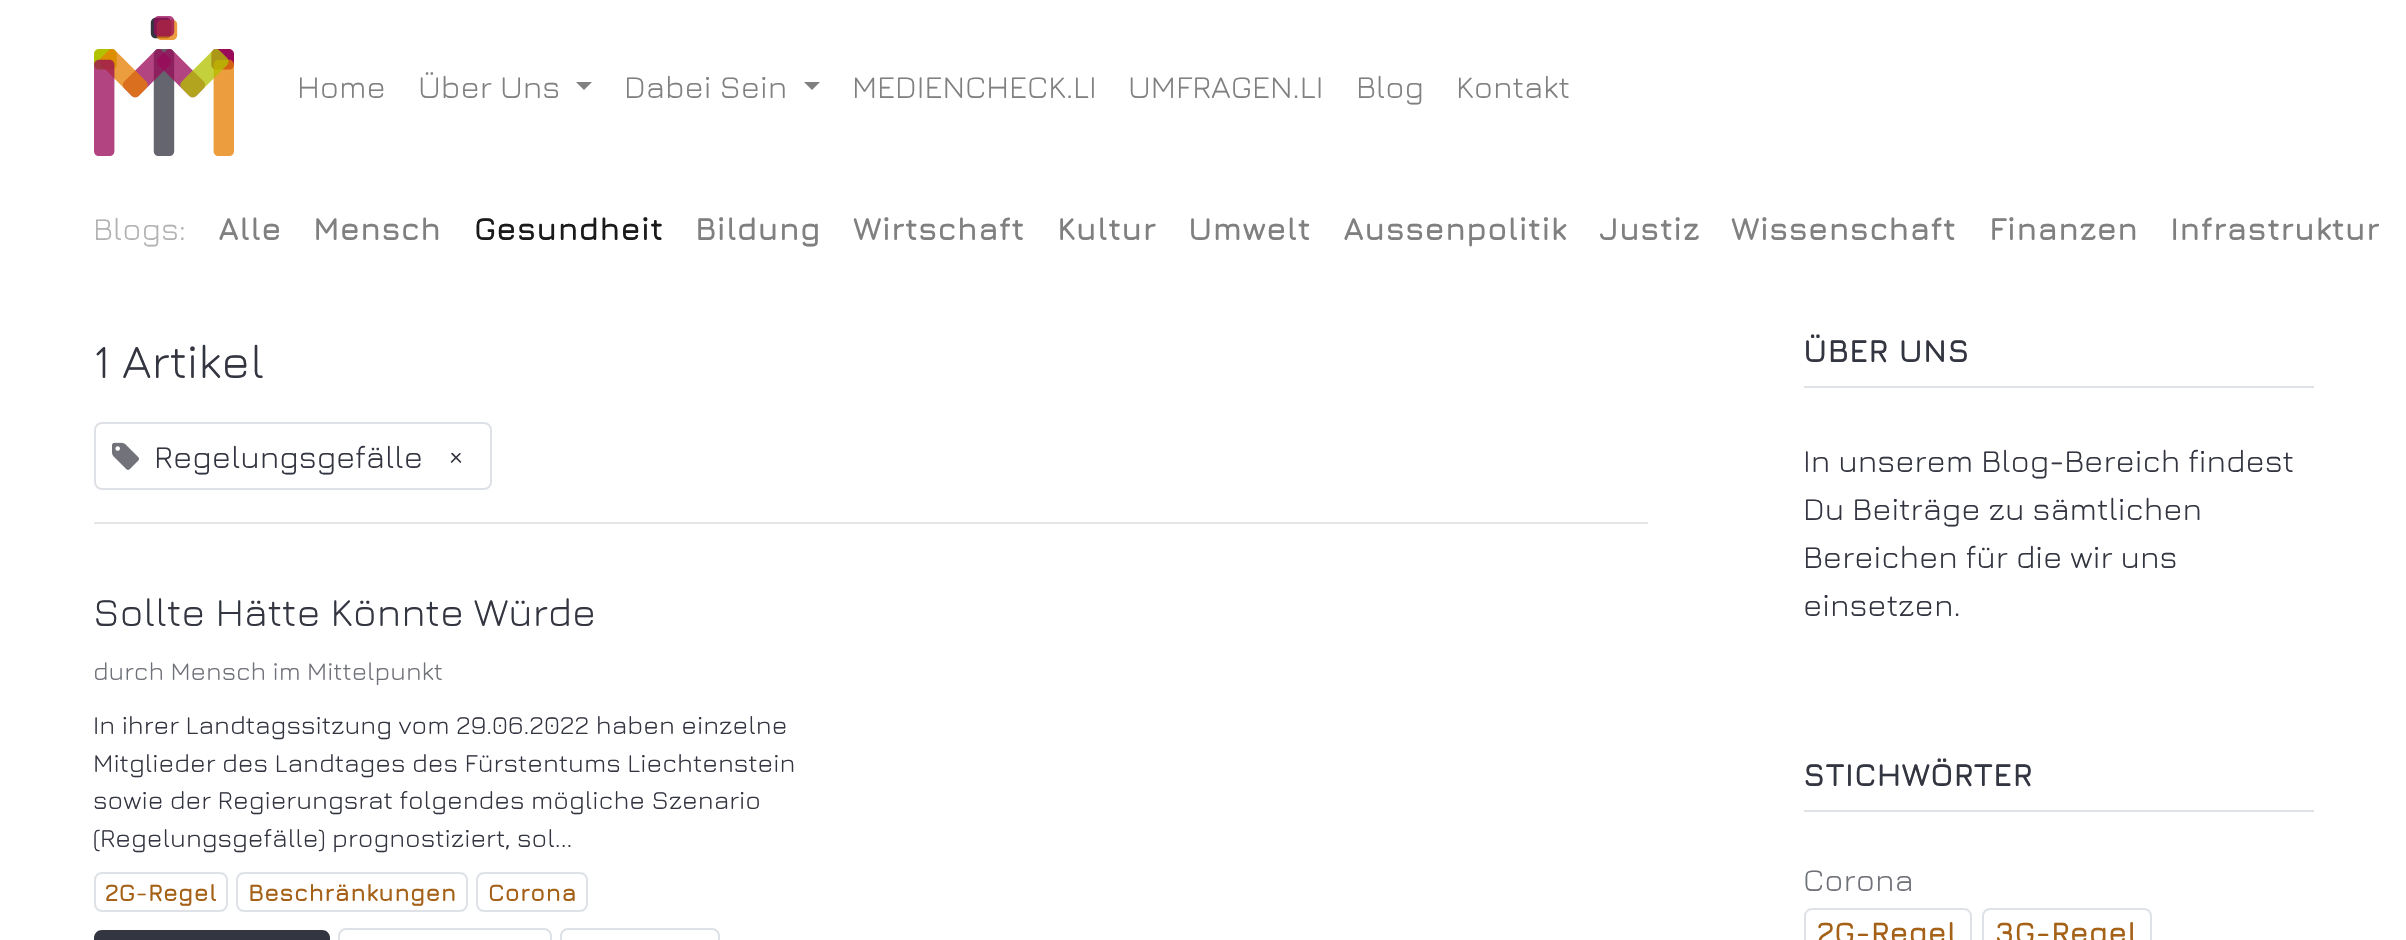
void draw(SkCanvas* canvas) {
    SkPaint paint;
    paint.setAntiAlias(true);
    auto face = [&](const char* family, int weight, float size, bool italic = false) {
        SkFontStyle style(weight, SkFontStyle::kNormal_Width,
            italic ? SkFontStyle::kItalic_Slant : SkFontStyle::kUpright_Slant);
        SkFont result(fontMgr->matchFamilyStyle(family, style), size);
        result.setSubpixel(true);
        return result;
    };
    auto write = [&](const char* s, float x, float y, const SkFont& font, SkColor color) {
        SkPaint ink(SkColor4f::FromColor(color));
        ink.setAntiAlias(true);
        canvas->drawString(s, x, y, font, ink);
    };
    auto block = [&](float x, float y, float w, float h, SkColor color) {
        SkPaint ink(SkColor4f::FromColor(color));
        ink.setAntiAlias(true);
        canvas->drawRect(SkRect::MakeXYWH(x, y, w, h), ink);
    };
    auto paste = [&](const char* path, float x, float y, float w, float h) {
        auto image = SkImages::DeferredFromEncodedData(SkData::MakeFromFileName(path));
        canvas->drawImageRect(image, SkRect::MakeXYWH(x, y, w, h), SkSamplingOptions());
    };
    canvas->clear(SK_ColorWHITE);
    paste("pic1.png", 94, 16, 140, 140);
    auto kFont1 = face("Jura", 400, 32);
    write("Home", 297, 98, kFont1, SkColorSetRGB(128, 128, 128));
    write("Über Uns", 418, 98, kFont1, SkColorSetRGB(128, 128, 128));
    paint.setColor(SkColorSetRGB(128, 128, 128));
    canvas->drawPath(SkPathBuilder().moveTo(576, 82).lineTo(592, 82).lineTo(584, 90).close().detach(), paint);
    write("Dabei Sein", 624, 98, kFont1, SkColorSetRGB(128, 128, 128));
    canvas->drawPath(SkPathBuilder().moveTo(804, 82).lineTo(820, 82).lineTo(812, 90).close().detach(), paint);
    write("MEDIENCHECK.LI", 852, 98, kFont1, SkColorSetRGB(128, 128, 128));
    write("UMFRAGEN.LI", 1128, 98, kFont1, SkColorSetRGB(128, 128, 128));
    write("Blog", 1356, 98, kFont1, SkColorSetRGB(128, 128, 128));
    write("Kontakt", 1456, 98, kFont1, SkColorSetRGB(128, 128, 128));
    write("Blogs:", 93, 240, kFont1, SkColorSetRGB(179, 179, 179));
    auto kFont2 = face("Jura", 700, 32);
    write("Alle", 218, 240, kFont2, SkColorSetRGB(128, 128, 128));
    write("Mensch", 313, 240, kFont2, SkColorSetRGB(128, 128, 128));
    write("Gesundheit", 474, 240, kFont2, SkColorSetRGB(26, 26, 26));
    write("Bildung", 695, 240, kFont2, SkColorSetRGB(128, 128, 128));
    write("Wirtschaft", 853, 240, kFont2, SkColorSetRGB(128, 128, 128));
    write("Kultur", 1057, 240, kFont2, SkColorSetRGB(128, 128, 128));
    write("Umwelt", 1188, 240, kFont2, SkColorSetRGB(128, 128, 128));
    write("Aussenpolitik", 1343, 240, kFont2, SkColorSetRGB(128, 128, 128));
    write("Justiz", 1599, 240, kFont2, SkColorSetRGB(128, 128, 128));
    write("Wissenschaft", 1731, 240, kFont2, SkColorSetRGB(128, 128, 128));
    write("Finanzen", 1989, 240, kFont2, SkColorSetRGB(128, 128, 128));
    write("Infrastruktur", 2170, 240, kFont2, SkColorSetRGB(128, 128, 128));
    auto kFont3 = face("Jura", 400, 48);
    write("1 Artikel", 93, 378, kFont3, SkColorSetRGB(51, 53, 64));
    paint.setStyle(SkPaint::kStroke_Style);
    paint.setStrokeWidth(2);
    paint.setColor(SkColorSetRGB(222, 226, 230));
    canvas->drawRoundRect(SkRect::MakeXYWH(95, 423, 396, 66), 7, 7, paint);
    paste("pic2.png", 112, 442, 27, 28);
    write("Regelungsgefälle", 154, 468, kFont1, SkColorSetRGB(51, 53, 64));
    write("×", 447, 468, kFont1, SkColorSetRGB(51, 53, 64));
    block(94, 522, 1554, 2, SkColorSetRGB(230, 230, 230));
    auto kFont4 = face("Jura", 400, 40);
    write("Sollte Hätte Könnte Würde", 93, 626, kFont4, SkColorSetRGB(51, 53, 64));
    auto kFont5 = face("Jura", 400, 25.6f);
    write("durch Mensch im Mittelpunkt", 93, 680, kFont5, SkColorSetRGB(112, 114, 121));
    auto kFont6 = face("Jura", 400, 26);
    write("In ihrer Landtagssitzung vom 29.06.2022 haben einzelne", 93, 734, kFont6, SkColorSetRGB(51, 53, 64));
    write("Mitglieder des Landtages des Fürstentums Liechtenstein", 93, 772, kFont6, SkColorSetRGB(51, 53, 64));
    write("sowie der Regierungsrat folgendes mögliche Szenario", 93, 809, kFont6, SkColorSetRGB(51, 53, 64));
    write("(Regelungsgefälle) prognostiziert, sol...", 93, 847, kFont6, SkColorSetRGB(51, 53, 64));
    canvas->drawRoundRect(SkRect::MakeXYWH(95, 873, 132, 38), 7, 7, paint);
    auto kFont7 = face("Jura", 700, 24);
    write("2G-Regel", 105, 901, kFont7, SkColorSetRGB(165, 97, 24));
    canvas->drawRoundRect(SkRect::MakeXYWH(237, 873, 230, 38), 7, 7, paint);
    write("Beschränkungen", 248, 901, kFont7, SkColorSetRGB(165, 97, 24));
    canvas->drawRoundRect(SkRect::MakeXYWH(477, 873, 110, 38), 7, 7, paint);
    write("Corona", 488, 901, kFont7, SkColorSetRGB(165, 97, 24));
    paint.setStyle(SkPaint::kFill_Style);
    paint.setColor(SkColorSetRGB(51, 53, 64));
    canvas->drawPath(SkPathBuilder().moveTo(102, 930).lineTo(322, 930).cubicTo(326.5f, 930, 330, 933.5f, 330, 938).lineTo(330, 940).lineTo(94, 940).lineTo(94, 938).cubicTo(94, 933.5f, 97.5f, 930, 102, 930).close().detach(), paint);
    paint.setStyle(SkPaint::kStroke_Style);
    paint.setColor(SkColorSetRGB(222, 226, 230));
    canvas->drawRoundRect(SkRect::MakeXYWH(339, 929, 212, 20), 7, 7, paint);
    canvas->drawRoundRect(SkRect::MakeXYWH(561, 929, 158, 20), 7, 7, paint);
    block(1804, 386, 510, 2, SkColorSetRGB(222, 226, 230));
    write("ÜBER UNS", 1803, 362, kFont2, SkColorSetRGB(51, 53, 64));
    write("In unserem Blog-Bereich findest", 1803, 472, kFont1, SkColorSetRGB(51, 53, 64));
    write("Du Beiträge zu sämtlichen", 1803, 520, kFont1, SkColorSetRGB(51, 53, 64));
    write("Bereichen für die wir uns", 1803, 568, kFont1, SkColorSetRGB(51, 53, 64));
    write("einsetzen.", 1803, 616, kFont1, SkColorSetRGB(51, 53, 64));
    block(1804, 810, 510, 2, SkColorSetRGB(222, 226, 230));
    write("STICHWÖRTER", 1803, 786, kFont2, SkColorSetRGB(51, 53, 64));
    write("Corona", 1803, 891, kFont1, SkColorSetRGB(112, 114, 121));
    canvas->drawRoundRect(SkRect::MakeXYWH(1805, 909, 166, 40), 7, 7, paint);
    auto kFont8 = face("Jura", 700, 30);
    write("2G-Regel", 1817, 943, kFont8, SkColorSetRGB(165, 97, 24));
    canvas->drawRoundRect(SkRect::MakeXYWH(1983, 909, 168, 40), 7, 7, paint);
    write("3G-Regel", 1995, 943, kFont8, SkColorSetRGB(165, 97, 24));
}
